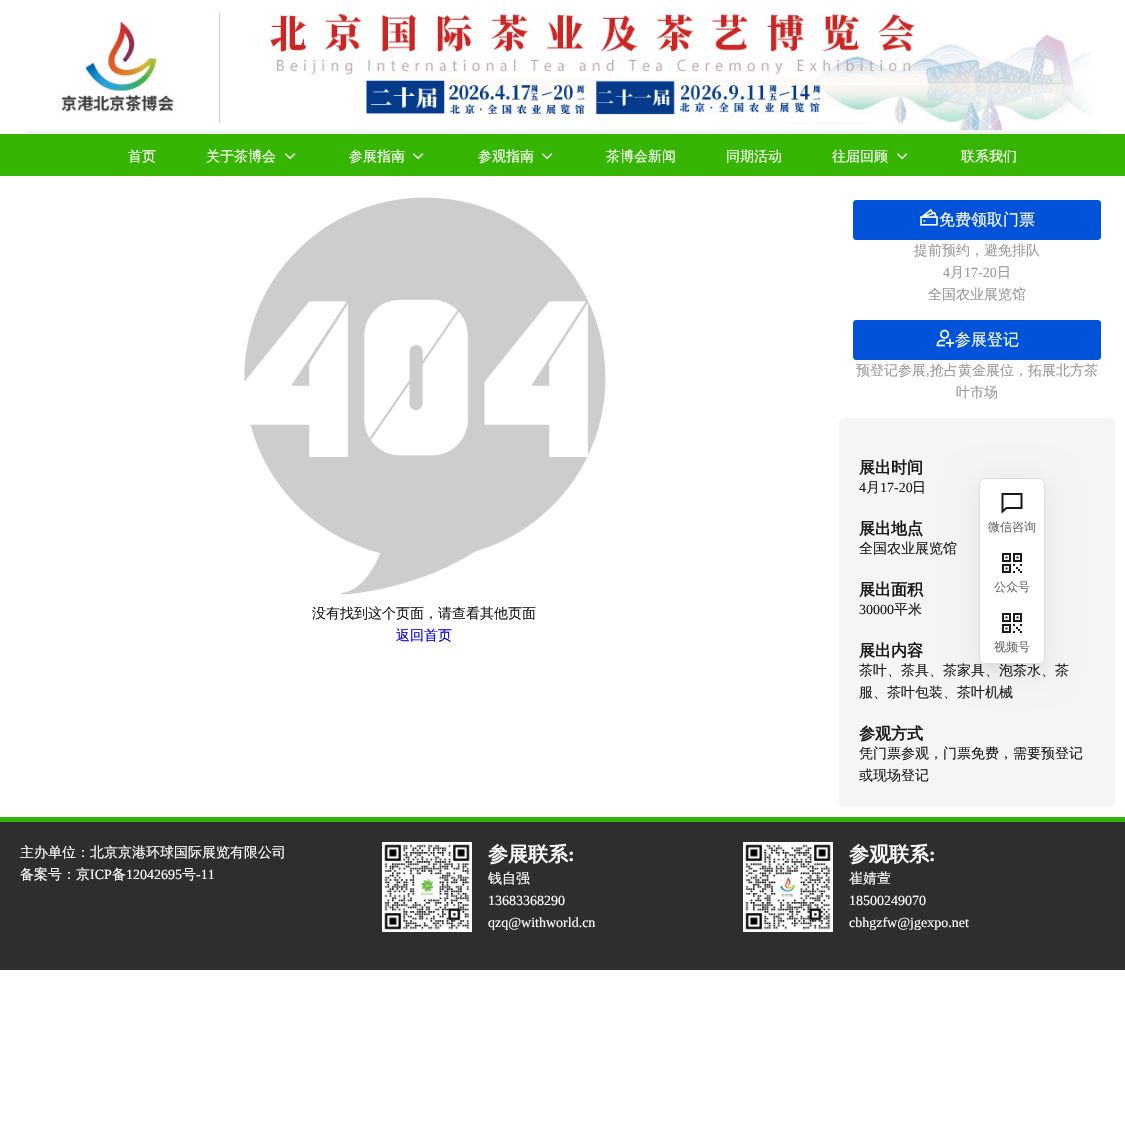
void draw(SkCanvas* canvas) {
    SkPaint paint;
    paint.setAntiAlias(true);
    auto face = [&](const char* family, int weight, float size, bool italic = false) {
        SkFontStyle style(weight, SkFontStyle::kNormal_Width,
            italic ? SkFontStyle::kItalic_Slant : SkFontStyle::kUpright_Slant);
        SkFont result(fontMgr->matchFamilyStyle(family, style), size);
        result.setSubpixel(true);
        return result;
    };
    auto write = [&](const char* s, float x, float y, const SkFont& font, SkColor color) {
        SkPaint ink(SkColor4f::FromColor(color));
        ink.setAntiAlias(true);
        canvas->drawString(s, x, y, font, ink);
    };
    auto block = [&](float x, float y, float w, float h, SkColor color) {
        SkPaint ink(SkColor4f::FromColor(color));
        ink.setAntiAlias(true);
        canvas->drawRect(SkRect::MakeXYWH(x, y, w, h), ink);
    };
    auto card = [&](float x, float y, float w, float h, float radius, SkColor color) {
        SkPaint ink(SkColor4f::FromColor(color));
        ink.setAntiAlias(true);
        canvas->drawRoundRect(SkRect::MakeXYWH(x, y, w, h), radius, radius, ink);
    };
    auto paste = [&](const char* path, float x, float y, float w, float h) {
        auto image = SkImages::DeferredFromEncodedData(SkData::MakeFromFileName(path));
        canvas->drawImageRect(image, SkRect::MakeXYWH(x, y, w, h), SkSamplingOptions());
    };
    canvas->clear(SK_ColorWHITE);
    block(27, 130, 1072, 4, SkColorSetRGB(243, 243, 243));
    paste("pic1.png", 27, 0, 1072, 130);
    block(0, 134, 1125, 42, SkColorSetRGB(54, 181, 2));
    auto kFont1 = face("WenQuanYi Zen Hei", 500, 14);
    write("首页", 128, 161, kFont1, SK_ColorWHITE);
    write("关于茶博会", 206, 161, kFont1, SK_ColorWHITE);
    paste("pic2.png", 285, 153, 11, 7);
    write("参展指南", 349, 161, kFont1, SK_ColorWHITE);
    paste("pic2.png", 413, 153, 11, 7);
    write("参观指南", 478, 161, kFont1, SK_ColorWHITE);
    paste("pic2.png", 542, 153, 11, 7);
    write("茶博会新闻", 606, 161, kFont1, SK_ColorWHITE);
    write("同期活动", 726, 161, kFont1, SK_ColorWHITE);
    write("往届回顾", 832, 161, kFont1, SK_ColorWHITE);
    paste("pic2.png", 897, 153, 11, 7);
    write("联系我们", 961, 161, kFont1, SK_ColorWHITE);
    paste("pic3.png", 244, 197, 362, 398);
    write("没有找到这个页面，请查看其他页面", 312, 618, kFont1, SkColorSetRGB(26, 26, 26));
    write("返回首页", 396, 640, kFont1, SkColorSetRGB(0, 0, 238));
    paint.setColor(SkColorSetRGB(0, 82, 217));
    canvas->drawRoundRect(SkRect::MakeXYWH(853.5f, 200.5f, 247, 39), 2.5f, 2.5f, paint);
    paint.setStyle(SkPaint::kStroke_Style);
    paint.setStrokeWidth(1);
    canvas->drawRoundRect(SkRect::MakeXYWH(853.5f, 200.5f, 247, 39), 2.5f, 2.5f, paint);
    paste("pic4.png", 920, 208, 18, 18);
    auto kFont2 = face("WenQuanYi Zen Hei", 500, 16);
    write("免费领取门票", 939, 225, kFont2, SK_ColorWHITE);
    write("提前预约，避免排队", 914, 255, kFont1, SkColorSetRGB(153, 153, 153));
    auto kFont3 = face("Liberation Serif", 400, 14);
    write("4", 943, 277, kFont3, SkColorSetRGB(153, 153, 153));
    write("月", 950, 277, kFont1, SkColorSetRGB(153, 153, 153));
    write("17-20", 964, 277, kFont3, SkColorSetRGB(153, 153, 153));
    write("日", 997, 277, kFont1, SkColorSetRGB(153, 153, 153));
    write("全国农业展览馆", 928, 299, kFont1, SkColorSetRGB(153, 153, 153));
    paint.setStyle(SkPaint::kFill_Style);
    canvas->drawRoundRect(SkRect::MakeXYWH(853.5f, 320.5f, 247, 39), 2.5f, 2.5f, paint);
    paint.setStyle(SkPaint::kStroke_Style);
    canvas->drawRoundRect(SkRect::MakeXYWH(853.5f, 320.5f, 247, 39), 2.5f, 2.5f, paint);
    paste("pic5.png", 936, 329, 19, 19);
    write("参展登记", 955, 345, kFont2, SK_ColorWHITE);
    write("预登记参展", 856, 375, kFont1, SkColorSetRGB(153, 153, 153));
    write(",", 926, 375, kFont3, SkColorSetRGB(153, 153, 153));
    write("抢占黄金展位，拓展北方茶", 930, 375, kFont1, SkColorSetRGB(153, 153, 153));
    write("叶市场", 956, 397, kFont1, SkColorSetRGB(153, 153, 153));
    card(839, 418, 276, 389, 5, SkColorSetRGB(245, 245, 245));
    auto kFont4 = face("WenQuanYi Zen Hei", 700, 16);
    write("展出时间", 859, 473, kFont4, SkColorSetRGB(26, 26, 26));
    write("4", 859, 492, kFont3, SkColorSetRGB(26, 26, 26));
    write("月", 866, 492, kFont1, SkColorSetRGB(26, 26, 26));
    write("17-20", 880, 492, kFont3, SkColorSetRGB(26, 26, 26));
    write("日", 912, 492, kFont1, SkColorSetRGB(26, 26, 26));
    write("展出地点", 859, 534, kFont4, SkColorSetRGB(26, 26, 26));
    write("全国农业展览馆", 859, 553, kFont1, SkColorSetRGB(26, 26, 26));
    write("展出面积", 859, 595, kFont4, SkColorSetRGB(26, 26, 26));
    write("30000", 859, 614, kFont3, SkColorSetRGB(26, 26, 26));
    write("平米", 894, 614, kFont1, SkColorSetRGB(26, 26, 26));
    write("展出内容", 859, 656, kFont4, SkColorSetRGB(26, 26, 26));
    write("茶叶、茶具、茶家具、泡茶水、茶", 859, 675, kFont1, SkColorSetRGB(26, 26, 26));
    write("服、茶叶包装、茶叶机械", 859, 697, kFont1, SkColorSetRGB(26, 26, 26));
    write("参观方式", 859, 739, kFont4, SkColorSetRGB(26, 26, 26));
    write("凭门票参观，门票免费，需要预登记", 859, 758, kFont1, SkColorSetRGB(26, 26, 26));
    write("或现场登记", 859, 780, kFont1, SkColorSetRGB(26, 26, 26));
    paint.setStyle(SkPaint::kFill_Style);
    paint.setColor(SkColorSetARGB(20, 0, 0, 0));
    paint.setMaskFilter(SkMaskFilter::MakeBlur(kNormal_SkBlurStyle, 5));
    canvas->drawRoundRect(SkRect::MakeXYWH(984, 491, 56, 176), 1, 1, paint);
    paint.setMaskFilter(nullptr);
    paint.setColor(SkColorSetARGB(13, 0, 0, 0));
    paint.setMaskFilter(SkMaskFilter::MakeBlur(kNormal_SkBlurStyle, 15));
    canvas->drawRoundRect(SkRect::MakeXYWH(974, 479, 76, 196), 11, 11, paint);
    paint.setMaskFilter(nullptr);
    paint.setColor(SK_ColorWHITE);
    canvas->drawRoundRect(SkRect::MakeXYWH(979.5f, 478.5f, 65, 185), 5.5f, 5.5f, paint);
    paint.setStyle(SkPaint::kStroke_Style);
    paint.setColor(SkColorSetRGB(221, 221, 221));
    canvas->drawRoundRect(SkRect::MakeXYWH(979.5f, 478.5f, 65, 185), 5.5f, 5.5f, paint);
    paste("pic6.png", 1001, 493, 22, 21);
    auto kFont5 = face("WenQuanYi Zen Hei", 500, 12);
    write("微信咨询", 988, 531, kFont5, SkColorSetRGB(102, 102, 102));
    paste("pic7.png", 1002, 553, 20, 20);
    write("公众号", 994, 591, kFont5, SkColorSetRGB(102, 102, 102));
    paste("pic7.png", 1002, 613, 20, 20);
    write("视频号", 994, 651, kFont5, SkColorSetRGB(102, 102, 102));
    block(0, 822, 1125, 148, SkColorSetRGB(46, 46, 46));
    block(0, 817, 1125, 5, SkColorSetRGB(54, 181, 2));
    write("主办单位：北京京港环球国际展览有限公司", 20, 857, kFont1, SK_ColorWHITE);
    write("备案号：京", 20, 879, kFont1, SK_ColorWHITE);
    write("ICP", 90, 879, kFont3, SK_ColorWHITE);
    write("备", 112, 879, kFont1, SK_ColorWHITE);
    write("12042695", 126, 879, kFont3, SK_ColorWHITE);
    write("号", 182, 879, kFont1, SK_ColorWHITE);
    write("-11", 196, 879, kFont3, SK_ColorWHITE);
    paste("pic8.png", 382, 842, 90, 90);
    auto kFont6 = face("WenQuanYi Zen Hei", 700, 20);
    write("参展联系", 488, 861, kFont6, SK_ColorWHITE);
    auto kFont7 = face("Liberation Serif", 700, 20);
    write(":", 568, 861, kFont7, SK_ColorWHITE);
    write("钱自强", 488, 883, kFont1, SK_ColorWHITE);
    write("13683368290", 488, 905, kFont3, SK_ColorWHITE);
    write("qzq@withworld.cn", 488, 927, kFont3, SK_ColorWHITE);
    paste("pic9.png", 743, 842, 90, 90);
    write("参观联系", 849, 861, kFont6, SK_ColorWHITE);
    write(":", 929, 861, kFont7, SK_ColorWHITE);
    write("崔婧萱", 849, 883, kFont1, SK_ColorWHITE);
    write("18500249070", 849, 905, kFont3, SK_ColorWHITE);
    write("cbhgzfw@jgexpo.net", 849, 927, kFont3, SK_ColorWHITE);
}
